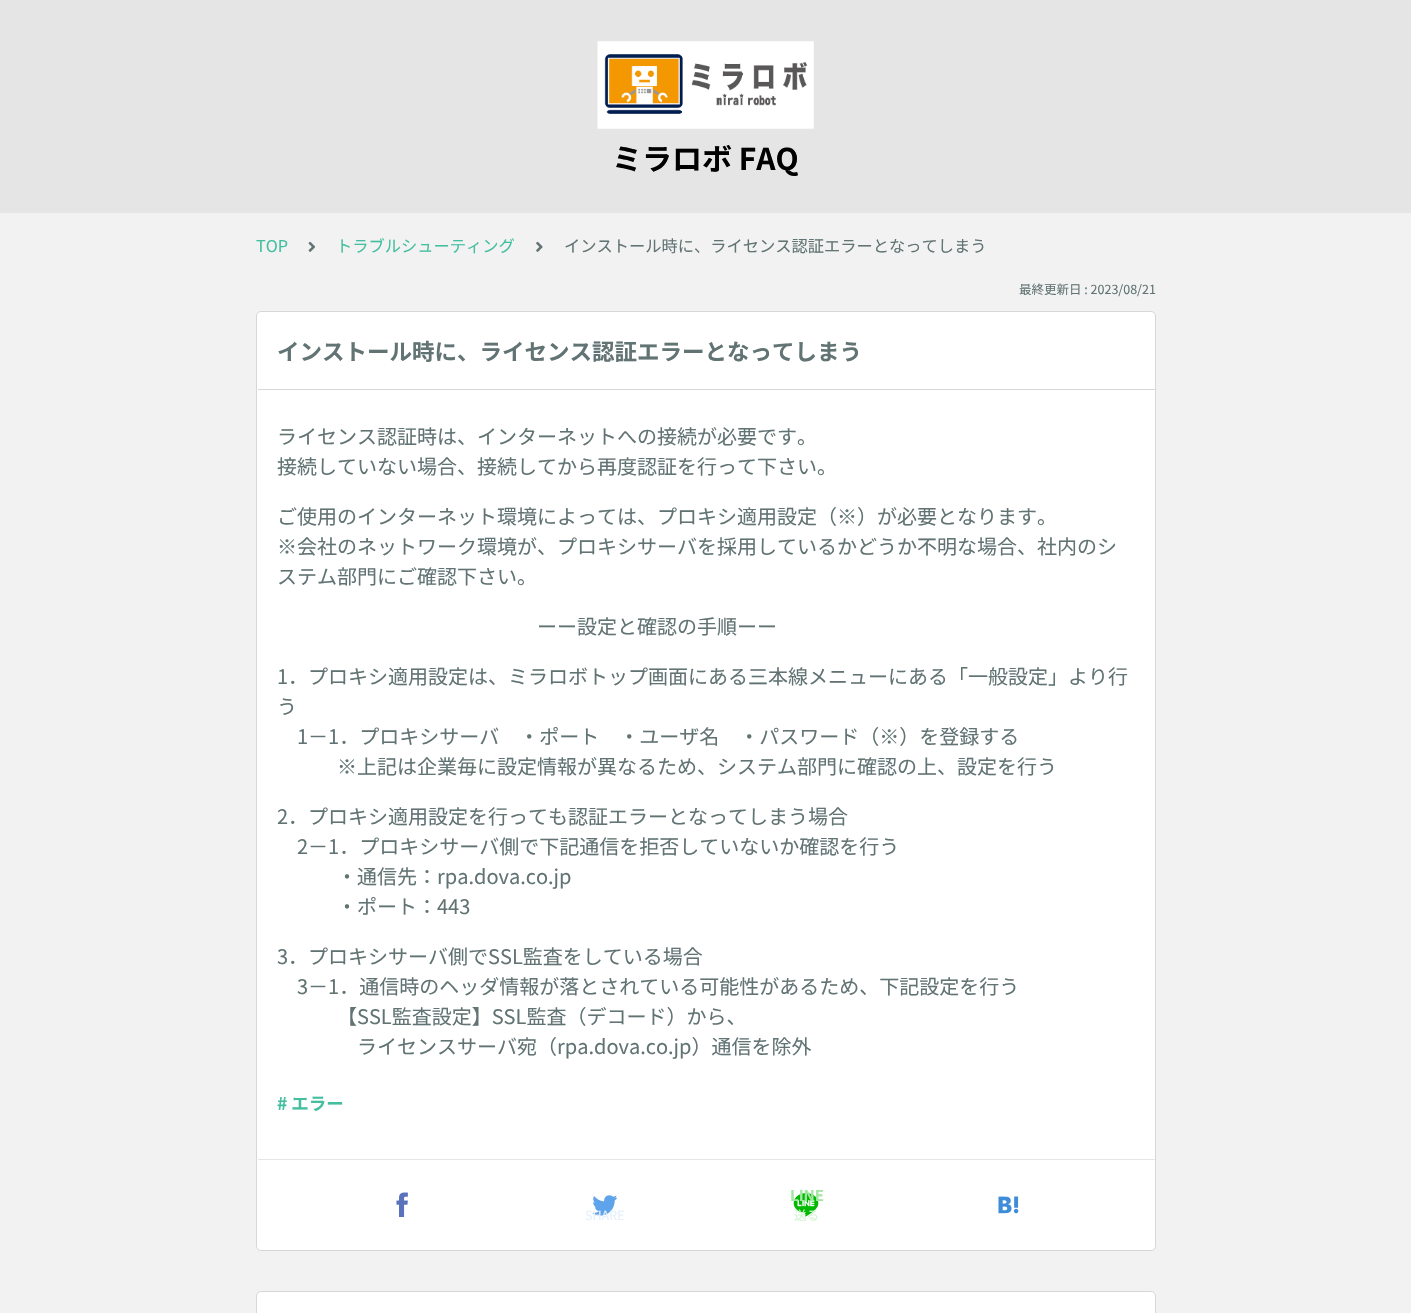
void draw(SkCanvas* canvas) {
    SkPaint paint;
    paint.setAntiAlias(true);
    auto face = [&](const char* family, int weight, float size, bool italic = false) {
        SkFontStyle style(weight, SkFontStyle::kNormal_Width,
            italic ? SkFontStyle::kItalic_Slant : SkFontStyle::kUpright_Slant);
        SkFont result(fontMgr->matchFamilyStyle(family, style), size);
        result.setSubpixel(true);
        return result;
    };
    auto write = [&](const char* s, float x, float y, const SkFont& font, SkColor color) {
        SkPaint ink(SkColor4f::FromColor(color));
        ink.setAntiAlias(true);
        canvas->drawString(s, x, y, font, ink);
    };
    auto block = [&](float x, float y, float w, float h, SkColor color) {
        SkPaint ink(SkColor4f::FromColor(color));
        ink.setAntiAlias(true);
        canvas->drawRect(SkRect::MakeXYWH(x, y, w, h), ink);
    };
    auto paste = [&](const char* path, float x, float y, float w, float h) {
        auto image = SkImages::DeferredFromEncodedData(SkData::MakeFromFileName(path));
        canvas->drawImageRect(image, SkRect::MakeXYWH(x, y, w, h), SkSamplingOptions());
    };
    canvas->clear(SkColorSetRGB(242, 242, 242));
    block(0, 0, 1411, 213, SkColorSetRGB(229, 229, 229));
    paste("pic1.png", 597, 41, 217, 88);
    auto kFont1 = face("Noto Sans JP", 700, 30);
    write("ミラロボ FAQ", 612, 170, kFont1, SK_ColorBLACK);
    auto kFont2 = face("Noto Sans JP", 400, 16.25f);
    write("TOP", 256, 252, kFont2, SkColorSetRGB(67, 191, 160));
    paste("pic2.png", 308, 241, 8, 11);
    write("トラブルシューティング", 336, 252, kFont2, SkColorSetRGB(67, 191, 160));
    paste("pic3.png", 536, 241, 7, 11);
    write("インストール時に、ライセンス認証エラーとなってしまう", 564, 252, kFont2, SkColorSetRGB(98, 115, 115));
    auto kFont3 = face("Noto Sans JP", 400, 12.5f);
    write("最終更新日 : 2023/08/21", 1019, 294, kFont3, SkColorSetRGB(98, 115, 115));
    paint.setColor(SK_ColorWHITE);
    canvas->drawRoundRect(SkRect::MakeXYWH(256.5f, 311.5f, 899, 939), 4.5f, 4.5f, paint);
    paint.setStyle(SkPaint::kStroke_Style);
    paint.setStrokeWidth(1);
    paint.setColor(SkColorSetRGB(215, 215, 215));
    canvas->drawRoundRect(SkRect::MakeXYWH(256.5f, 311.5f, 899, 939), 4.5f, 4.5f, paint);
    block(258, 389, 897, 1, SkColorSetRGB(215, 215, 215));
    auto kFont4 = face("Noto Sans JP", 700, 22.5f);
    write("インストール時に、ライセンス認証エラーとなってしまう", 277, 360, kFont4, SkColorSetRGB(98, 115, 115));
    auto kFont5 = face("Noto Sans JP", 400, 20);
    write("ライセンス認証時は、インターネットへの接続が必要です。", 277, 444, kFont5, SkColorSetRGB(98, 115, 115));
    write("接続していない場合、接続してから再度認証を行って下さい。", 277, 474, kFont5, SkColorSetRGB(98, 115, 115));
    write("ご使用のインターネット環境によっては、プロキシ適用設定（※）が必要となります。", 277, 524, kFont5, SkColorSetRGB(98, 115, 115));
    write("※会社のネットワーク環境が、プロキシサーバを採用しているかどうか不明な場合、社内のシ", 277, 554, kFont5, SkColorSetRGB(98, 115, 115));
    write("ステム部門にご確認下さい。", 277, 584, kFont5, SkColorSetRGB(98, 115, 115));
    write("ーー設定と確認の手順ーー", 537, 634, kFont5, SkColorSetRGB(98, 115, 115));
    write("1．プロキシ適用設定は、ミラロボトップ画面にある三本線メニューにある「一般設定」より行", 277, 684, kFont5, SkColorSetRGB(98, 115, 115));
    write("う", 277, 714, kFont5, SkColorSetRGB(98, 115, 115));
    write("1－1．プロキシサーバ　・ポート　・ユーザ名　・パスワード（※）を登録する", 297, 744, kFont5, SkColorSetRGB(98, 115, 115));
    write("※上記は企業毎に設定情報が異なるため、システム部門に確認の上、設定を行う", 337, 774, kFont5, SkColorSetRGB(98, 115, 115));
    write("2．プロキシ適用設定を行っても認証エラーとなってしまう場合", 277, 824, kFont5, SkColorSetRGB(98, 115, 115));
    write("2－1．プロキシサーバ側で下記通信を拒否していないか確認を行う", 297, 854, kFont5, SkColorSetRGB(98, 115, 115));
    write("・通信先：rpa.dova.co.jp", 337, 884, kFont5, SkColorSetRGB(98, 115, 115));
    write("・ポート：443", 337, 914, kFont5, SkColorSetRGB(98, 115, 115));
    write("3．プロキシサーバ側でSSL監査をしている場合", 277, 964, kFont5, SkColorSetRGB(98, 115, 115));
    write("3－1．通信時のヘッダ情報が落とされている可能性があるため、下記設定を行う", 297, 994, kFont5, SkColorSetRGB(98, 115, 115));
    write("【SSL監査設定】SSL監査（デコード）から、", 337, 1024, kFont5, SkColorSetRGB(98, 115, 115));
    write("ライセンスサーバ宛（rpa.dova.co.jp）通信を除外", 357, 1054, kFont5, SkColorSetRGB(98, 115, 115));
    auto kFont6 = face("Noto Sans JP", 700, 17.5f);
    write("# エラー", 277, 1110, kFont6, SkColorSetRGB(67, 191, 160));
    block(258, 1159, 897, 1, SkColorSetRGB(230, 230, 230));
    paste("pic4.png", 396, 1192, 12, 25);
    paste("pic5.png", 793, 1193, 26, 24);
    auto kFont7 = face("Noto Sans JP", 700, 15);
    write("LINE", 790, 1201, kFont7, SkColorSetRGB(162, 230, 162));
    write("送る", 794, 1220, kFont3, SkColorSetRGB(212, 243, 212));
    paste("pic6.png", 998, 1196, 21, 18);
    paste("pic7.png", 592, 1195, 26, 21);
    write("SHARE", 585, 1220, kFont3, SkColorSetRGB(230, 241, 252));
    paint.setStyle(SkPaint::kFill_Style);
    paint.setColor(SK_ColorWHITE);
    canvas->drawRoundRect(SkRect::MakeXYWH(256.5f, 1291.5f, 899, 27), 4.5f, 4.5f, paint);
    paint.setStyle(SkPaint::kStroke_Style);
    paint.setColor(SkColorSetRGB(215, 215, 215));
    canvas->drawRoundRect(SkRect::MakeXYWH(256.5f, 1291.5f, 899, 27), 4.5f, 4.5f, paint);
}
